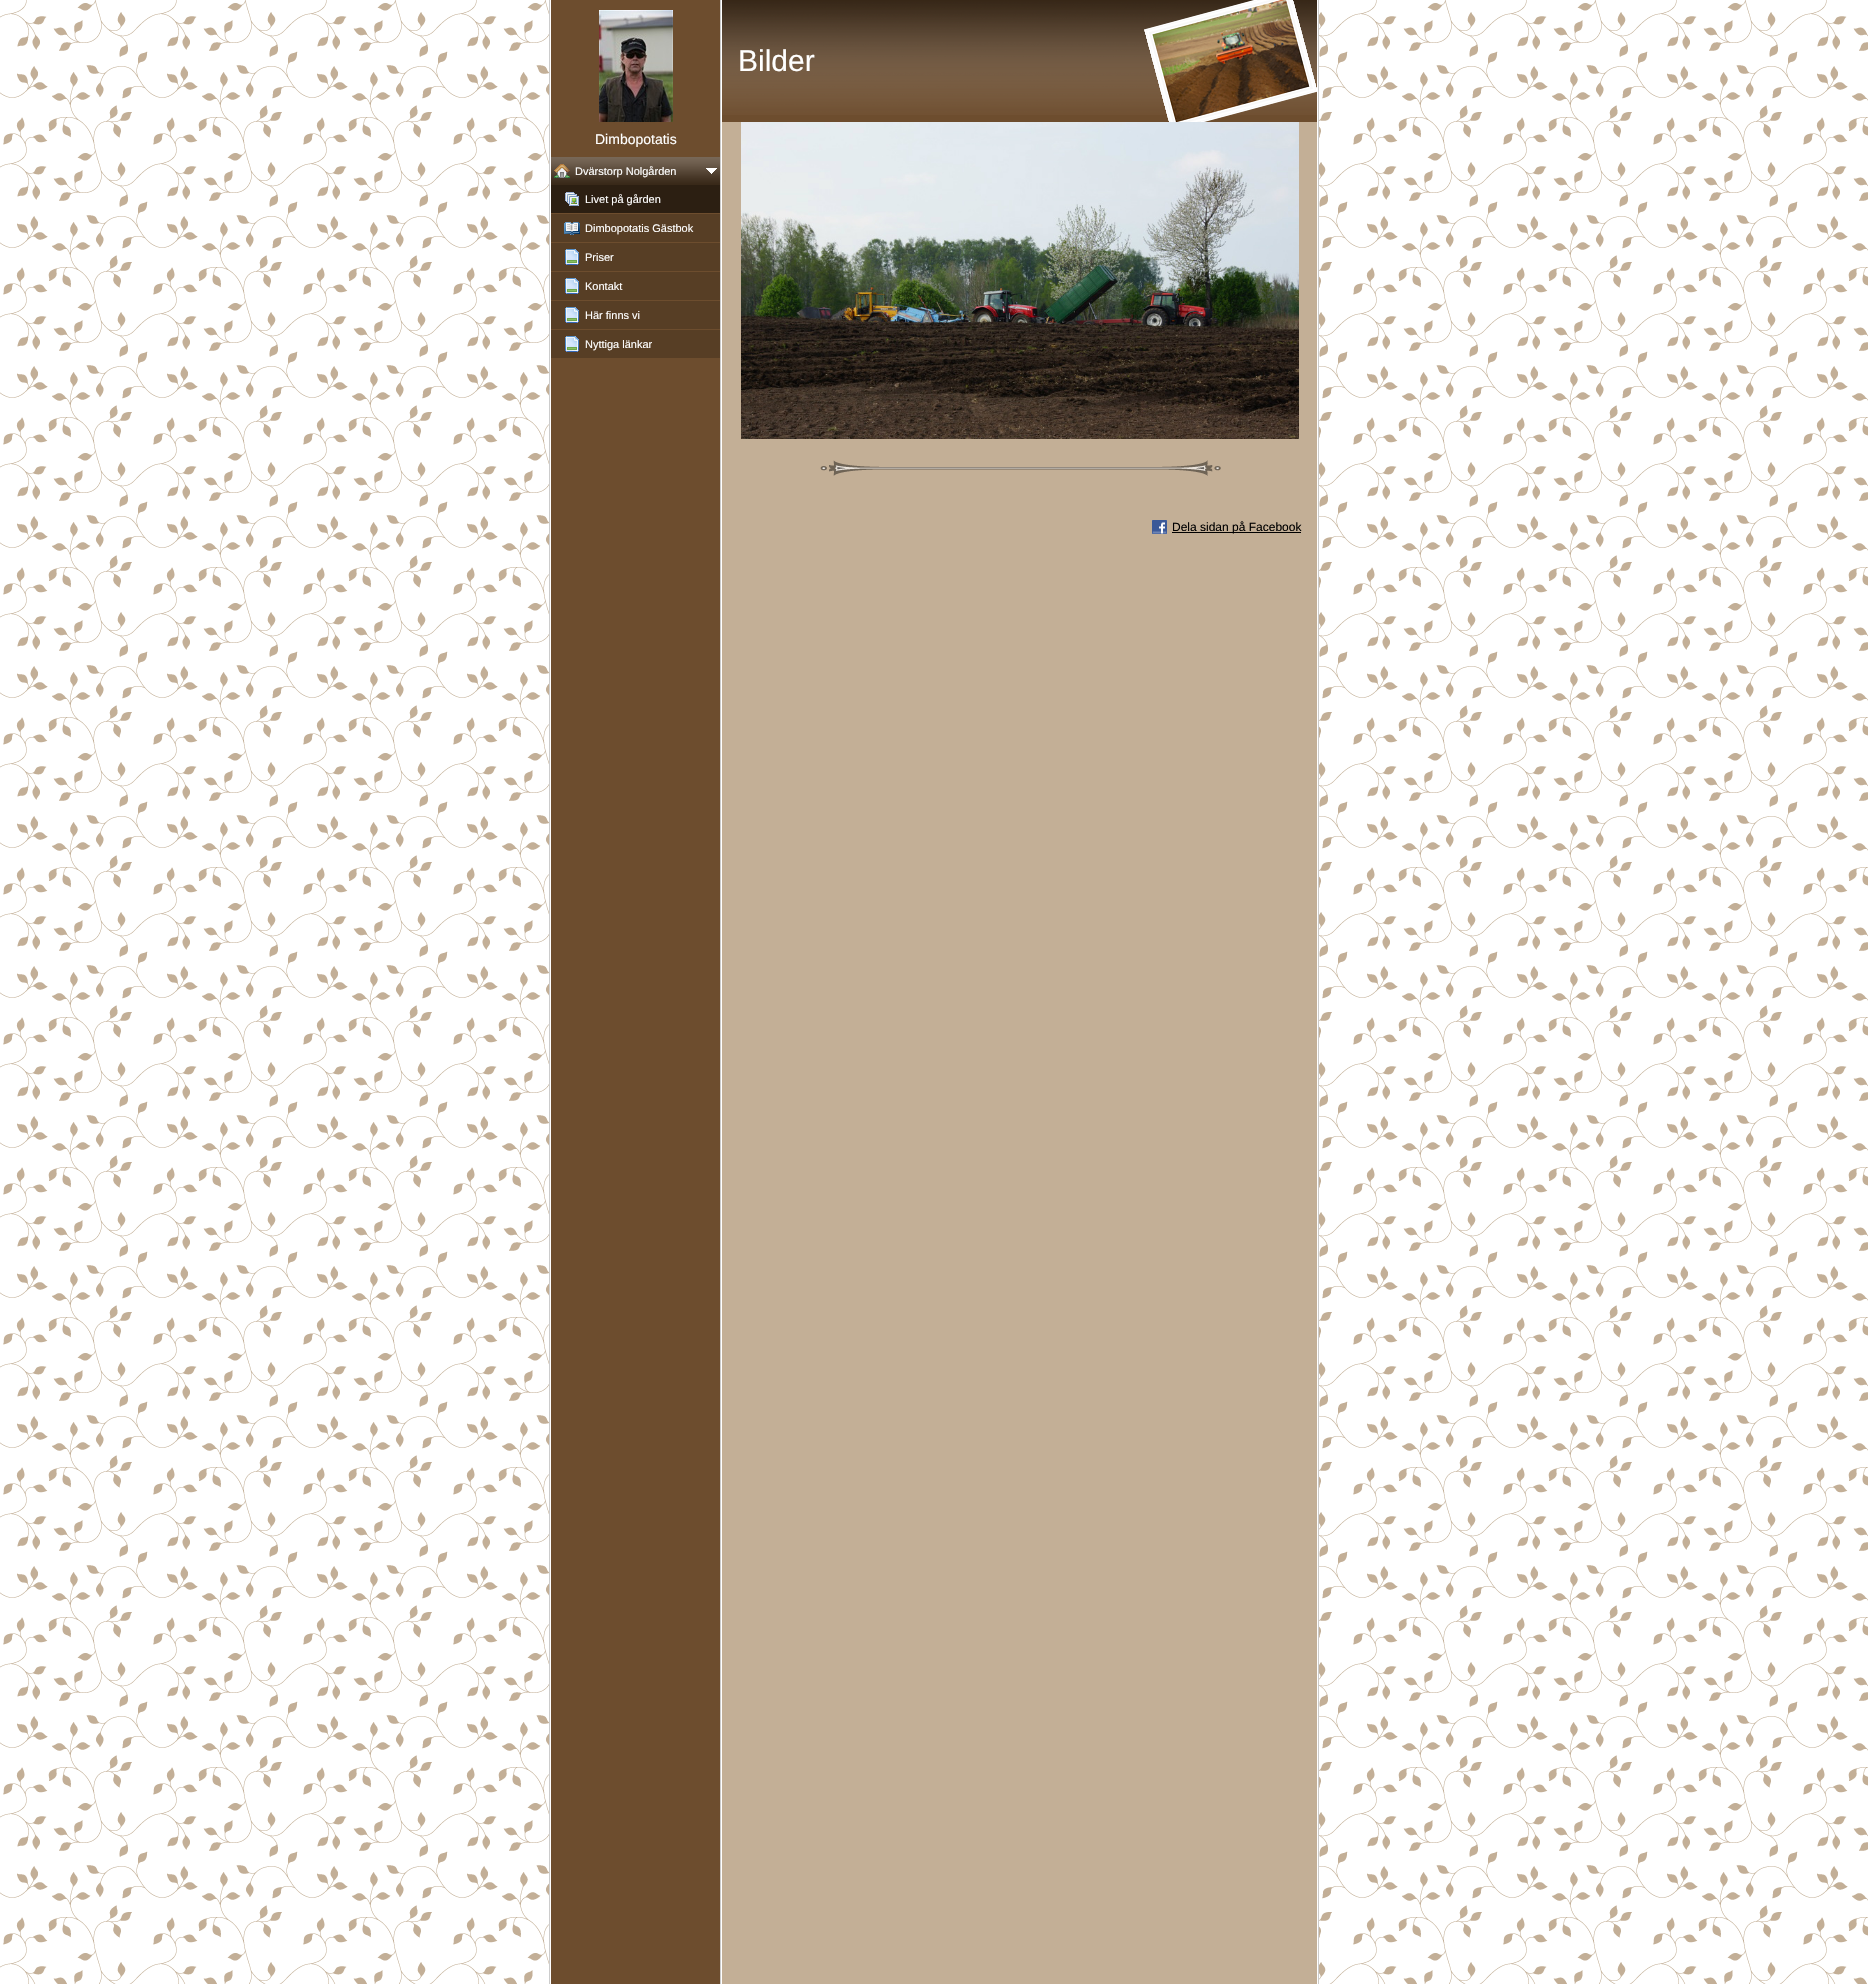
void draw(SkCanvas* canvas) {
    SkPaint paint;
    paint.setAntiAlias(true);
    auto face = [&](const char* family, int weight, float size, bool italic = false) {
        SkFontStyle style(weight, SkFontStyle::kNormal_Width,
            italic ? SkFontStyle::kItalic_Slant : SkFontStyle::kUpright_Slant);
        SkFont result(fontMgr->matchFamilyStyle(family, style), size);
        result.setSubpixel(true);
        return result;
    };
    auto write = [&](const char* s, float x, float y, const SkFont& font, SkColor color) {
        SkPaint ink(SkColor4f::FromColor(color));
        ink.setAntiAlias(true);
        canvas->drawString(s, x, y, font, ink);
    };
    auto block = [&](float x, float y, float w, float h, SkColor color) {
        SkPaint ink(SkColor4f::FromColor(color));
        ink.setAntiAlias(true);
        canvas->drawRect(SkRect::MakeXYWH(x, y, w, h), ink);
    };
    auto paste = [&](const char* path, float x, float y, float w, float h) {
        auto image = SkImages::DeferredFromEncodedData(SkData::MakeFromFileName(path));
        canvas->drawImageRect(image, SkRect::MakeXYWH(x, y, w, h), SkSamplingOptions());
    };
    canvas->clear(SK_ColorWHITE);
    paste("pic1.png", 0, 0, 1868, 1984);
    block(550, 0, 768, 1984, SK_ColorWHITE);
    block(549, 0, 1, 1984, SkColorSetRGB(204, 204, 204));
    block(551, 0, 169, 1984, SkColorSetRGB(109, 77, 46));
    paste("pic2.png", 599, 10, 74, 112);
    auto kFont1 = face("Liberation Sans", 400, 14);
    write("Dimbopotatis", 595, 144, kFont1, SK_ColorWHITE);
    paste("pic3.png", 551, 157, 169, 28);
    paste("pic4.png", 554, 164, 16, 14);
    paste("pic5.png", 706, 168, 11, 6);
    auto kFont2 = face("Liberation Sans", 400, 11);
    write("Dvärstorp Nolgården", 575, 175, kFont2, SK_ColorWHITE);
    block(551, 185, 169, 28, SkColorSetRGB(44, 31, 18));
    paste("pic6.png", 565, 192, 14, 14);
    write("Livet på gården", 585, 203, kFont2, SK_ColorWHITE);
    block(551, 214, 169, 28, SkColorSetRGB(87, 62, 37));
    paste("pic7.png", 564, 222, 16, 13);
    write("Dimbopotatis Gästbok", 585, 232, kFont2, SK_ColorWHITE);
    block(551, 243, 169, 28, SkColorSetRGB(87, 62, 37));
    paste("pic8.png", 565, 249, 14, 16);
    write("Priser", 585, 261, kFont2, SK_ColorWHITE);
    block(551, 272, 169, 28, SkColorSetRGB(87, 62, 37));
    paste("pic8.png", 565, 278, 14, 16);
    write("Kontakt", 585, 290, kFont2, SK_ColorWHITE);
    block(551, 301, 169, 28, SkColorSetRGB(87, 62, 37));
    paste("pic8.png", 565, 307, 14, 16);
    write("Här finns vi", 585, 319, kFont2, SK_ColorWHITE);
    block(551, 330, 169, 28, SkColorSetRGB(87, 62, 37));
    paste("pic8.png", 565, 336, 14, 16);
    write("Nyttiga länkar", 585, 348, kFont2, SK_ColorWHITE);
    block(720, 0, 1, 1984, SkColorSetRGB(204, 204, 204));
    block(722, 122, 595, 1862, SkColorSetRGB(195, 175, 150));
    block(722, 0, 595, 122, SkColorSetRGB(109, 77, 46));
    paste("pic9.png", 722, 0, 595, 115);
    auto kFont3 = face("Liberation Sans", 400, 30);
    write("Bilder", 738, 71, kFont3, SK_ColorWHITE);
    paste("pic10.png", 1144, 0, 173, 122);
    paste("pic11.png", 741, 122, 558, 317);
    paste("pic12.png", 820, 460, 401, 16);
    paste("pic13.png", 1152, 520, 15, 14);
    block(1172, 532, 129, 1, SK_ColorBLACK);
    auto kFont4 = face("Liberation Sans", 400, 12);
    write("Dela sidan på Facebook", 1172, 531, kFont4, SK_ColorBLACK);
    block(1318, 0, 1, 1984, SkColorSetRGB(204, 204, 204));
}
